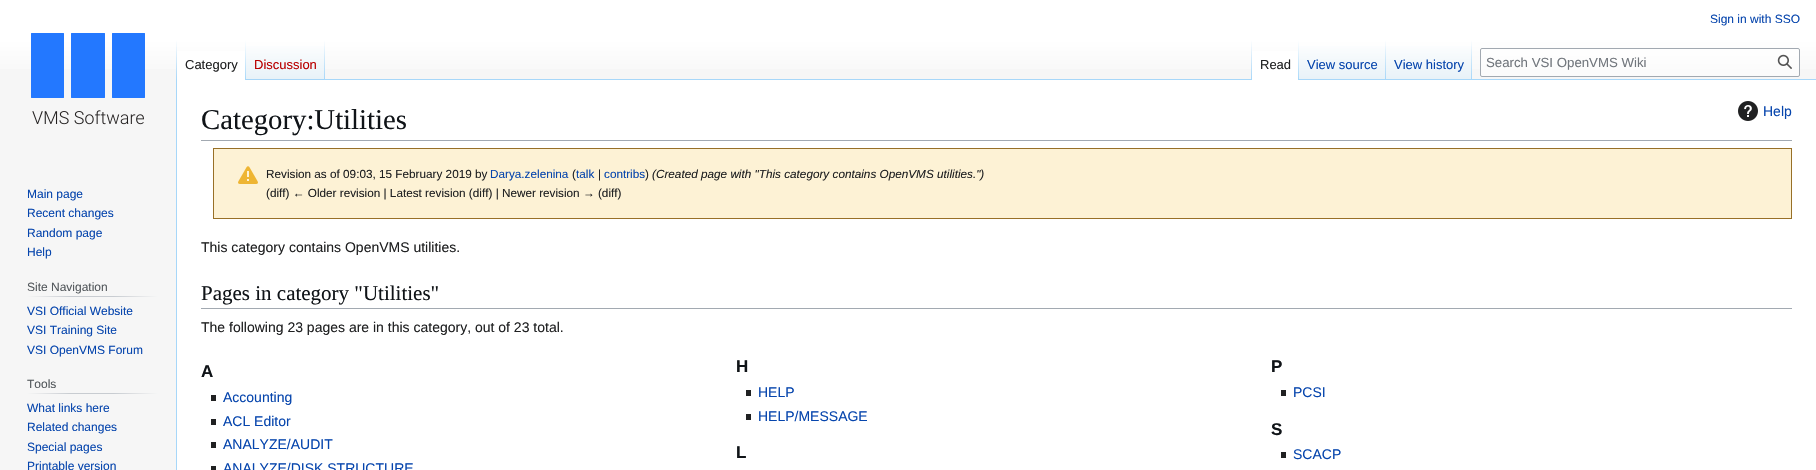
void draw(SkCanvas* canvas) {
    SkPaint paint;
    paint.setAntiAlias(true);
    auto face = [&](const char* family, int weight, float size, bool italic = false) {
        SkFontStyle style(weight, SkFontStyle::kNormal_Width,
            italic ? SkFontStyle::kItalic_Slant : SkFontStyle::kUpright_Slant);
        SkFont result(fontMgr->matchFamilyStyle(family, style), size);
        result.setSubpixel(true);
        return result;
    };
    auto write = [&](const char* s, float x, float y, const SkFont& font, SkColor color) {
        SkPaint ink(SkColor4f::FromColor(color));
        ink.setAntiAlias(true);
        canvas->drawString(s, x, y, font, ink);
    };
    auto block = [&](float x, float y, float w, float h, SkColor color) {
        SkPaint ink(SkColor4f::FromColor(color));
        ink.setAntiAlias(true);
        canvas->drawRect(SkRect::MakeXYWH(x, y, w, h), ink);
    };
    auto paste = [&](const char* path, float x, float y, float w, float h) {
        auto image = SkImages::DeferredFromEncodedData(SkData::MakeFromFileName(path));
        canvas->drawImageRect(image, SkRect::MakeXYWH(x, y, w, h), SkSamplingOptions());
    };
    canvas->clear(SkColorSetRGB(246, 246, 246));
    {
        const SkColor colors[] = {SK_ColorWHITE, SkColorSetRGB(246, 246, 246)};
        const float stops[] = {0.5f, 1};
        const SkPoint ends[] = {{908, 0}, {908, 80}};
        paint.setShader(SkGradientShader::MakeLinear(ends, colors, stops, 2, SkTileMode::kClamp));
        paint.setAlpha(255);
    }
    canvas->drawRect(SkRect::MakeXYWH(0, 0, 1816, 69), paint);
    auto kFont1 = face("Liberation Sans", 400, 12);
    write("Sign in with SSO", 1710, 23, kFont1, SkColorSetRGB(6, 69, 173));
    block(176, 79, 1, 391, SkColorSetRGB(167, 215, 249));
    {
        const SkColor colors[] = {SkColorSetARGB(0, 167, 215, 249), SkColorSetRGB(167, 215, 249)};
        const float stops[] = {0, 1};
        const SkPoint ends[] = {{177, 40}, {177, 80}};
        paint.setShader(SkGradientShader::MakeLinear(ends, colors, stops, 2, SkTileMode::kClamp));
        paint.setAlpha(255);
    }
    canvas->drawRect(SkRect::MakeXYWH(176, 40, 1, 40), paint);
    block(177, 51, 68, 29, SK_ColorWHITE);
    {
        const SkColor colors[] = {SK_ColorWHITE, SkColorSetRGB(167, 215, 249)};
        const float stops[] = {0, 1};
        const SkPoint ends[] = {{246, 40}, {246, 80}};
        paint.setShader(SkGradientShader::MakeLinear(ends, colors, stops, 2, SkTileMode::kClamp));
        paint.setAlpha(255);
    }
    canvas->drawRect(SkRect::MakeXYWH(245, 40, 1, 40), paint);
    auto kFont2 = face("Liberation Sans", 400, 13);
    write("Category", 185, 69, kFont2, SkColorSetRGB(32, 33, 34));
    {
        const SkColor colors[] = {SkColorSetRGB(119, 193, 246), SkColorSetRGB(232, 242, 248), SK_ColorWHITE};
        const float stops[] = {0, 0.03f, 1};
        const SkPoint ends[] = {{286, 80}, {286, 40}};
        paint.setShader(SkGradientShader::MakeLinear(ends, colors, stops, 3, SkTileMode::kClamp));
        paint.setAlpha(255);
    }
    canvas->drawRect(SkRect::MakeXYWH(246, 46, 79, 34), paint);
    {
        const SkColor colors[] = {SkColorSetARGB(0, 167, 215, 249), SkColorSetRGB(167, 215, 249)};
        const float stops[] = {0, 1};
        const SkPoint ends[] = {{325, 40}, {325, 80}};
        paint.setShader(SkGradientShader::MakeLinear(ends, colors, stops, 2, SkTileMode::kClamp));
        paint.setAlpha(255);
    }
    canvas->drawRect(SkRect::MakeXYWH(324, 40, 1, 40), paint);
    write("Discussion", 254, 69, kFont2, SkColorSetRGB(186, 0, 0));
    block(325, 79, 1491, 1, SkColorSetRGB(167, 215, 249));
    {
        const SkColor colors[] = {SkColorSetARGB(0, 167, 215, 249), SkColorSetRGB(167, 215, 249)};
        const float stops[] = {0, 1};
        const SkPoint ends[] = {{1252, 40}, {1252, 80}};
        paint.setShader(SkGradientShader::MakeLinear(ends, colors, stops, 2, SkTileMode::kClamp));
        paint.setAlpha(255);
    }
    canvas->drawRect(SkRect::MakeXYWH(1251, 40, 1, 40), paint);
    block(1252, 51, 46, 29, SK_ColorWHITE);
    {
        const SkColor colors[] = {SK_ColorWHITE, SkColorSetRGB(167, 215, 249)};
        const float stops[] = {0, 1};
        const SkPoint ends[] = {{1299, 40}, {1299, 80}};
        paint.setShader(SkGradientShader::MakeLinear(ends, colors, stops, 2, SkTileMode::kClamp));
        paint.setAlpha(255);
    }
    canvas->drawRect(SkRect::MakeXYWH(1298, 40, 1, 40), paint);
    write("Read", 1260, 69, kFont2, SkColorSetRGB(32, 33, 34));
    {
        const SkColor colors[] = {SkColorSetRGB(119, 193, 246), SkColorSetRGB(232, 242, 248), SK_ColorWHITE};
        const float stops[] = {0, 0.03f, 1};
        const SkPoint ends[] = {{1343, 80}, {1343, 40}};
        paint.setShader(SkGradientShader::MakeLinear(ends, colors, stops, 3, SkTileMode::kClamp));
        paint.setAlpha(255);
    }
    canvas->drawRect(SkRect::MakeXYWH(1299, 46, 87, 33), paint);
    {
        const SkColor colors[] = {SkColorSetARGB(0, 167, 215, 249), SkColorSetRGB(167, 215, 249)};
        const float stops[] = {0, 1};
        const SkPoint ends[] = {{1386, 40}, {1386, 80}};
        paint.setShader(SkGradientShader::MakeLinear(ends, colors, stops, 2, SkTileMode::kClamp));
        paint.setAlpha(255);
    }
    canvas->drawRect(SkRect::MakeXYWH(1385, 40, 1, 40), paint);
    write("View source", 1307, 69, kFont2, SkColorSetRGB(6, 69, 173));
    {
        const SkColor colors[] = {SkColorSetRGB(119, 193, 246), SkColorSetRGB(232, 242, 248), SK_ColorWHITE};
        const float stops[] = {0, 0.03f, 1};
        const SkPoint ends[] = {{1429, 80}, {1429, 40}};
        paint.setShader(SkGradientShader::MakeLinear(ends, colors, stops, 3, SkTileMode::kClamp));
        paint.setAlpha(255);
    }
    canvas->drawRect(SkRect::MakeXYWH(1386, 46, 86, 33), paint);
    {
        const SkColor colors[] = {SkColorSetARGB(0, 167, 215, 249), SkColorSetRGB(167, 215, 249)};
        const float stops[] = {0, 1};
        const SkPoint ends[] = {{1472, 40}, {1472, 80}};
        paint.setShader(SkGradientShader::MakeLinear(ends, colors, stops, 2, SkTileMode::kClamp));
        paint.setAlpha(255);
    }
    canvas->drawRect(SkRect::MakeXYWH(1471, 40, 1, 40), paint);
    write("View history", 1394, 69, kFont2, SkColorSetRGB(6, 69, 173));
    paint.setShader(nullptr);
    paint.setColor(SkColorSetARGB(128, 255, 255, 255));
    canvas->drawRoundRect(SkRect::MakeXYWH(1480.5f, 48.5f, 319, 28), 1.5f, 1.5f, paint);
    paint.setStyle(SkPaint::kStroke_Style);
    paint.setStrokeWidth(1);
    paint.setColor(SkColorSetRGB(162, 169, 177));
    canvas->drawRoundRect(SkRect::MakeXYWH(1480.5f, 48.5f, 319, 28), 1.5f, 1.5f, paint);
    auto kFont3 = face("Liberation Sans", 400, 13.25f);
    write("Search VSI OpenVMS Wiki", 1486, 67, kFont3, SkColorSetRGB(114, 119, 125));
    paste("pic1.png", 1777, 54, 15, 15);
    paste("pic2.png", 31, 33, 114, 92);
    write("Main page", 27, 198, kFont1, SkColorSetRGB(6, 69, 173));
    write("Recent changes", 27, 217, kFont1, SkColorSetRGB(6, 69, 173));
    write("Random page", 27, 237, kFont1, SkColorSetRGB(6, 69, 173));
    write("Help", 27, 256, kFont1, SkColorSetRGB(6, 69, 173));
    paint.setStyle(SkPaint::kFill_Style);
    {
        const SkColor colors[] = {SkColorSetRGB(246, 246, 246), SkColorSetRGB(200, 204, 209), SkColorSetRGB(200, 204, 209), SkColorSetRGB(246, 246, 246)};
        const float stops[] = {0, 0.33f, 0.66f, 1};
        const SkPoint ends[] = {{27, 297}, {158, 297}};
        paint.setShader(SkGradientShader::MakeLinear(ends, colors, stops, 4, SkTileMode::kClamp));
        paint.setAlpha(255);
    }
    canvas->drawRect(SkRect::MakeXYWH(27, 296, 131, 1), paint);
    write("Site Navigation", 27, 291, kFont1, SkColorSetRGB(84, 89, 93));
    write("VSI Official Website", 27, 315, kFont1, SkColorSetRGB(6, 69, 173));
    write("VSI Training Site", 27, 334, kFont1, SkColorSetRGB(6, 69, 173));
    write("VSI OpenVMS Forum", 27, 354, kFont1, SkColorSetRGB(6, 69, 173));
    {
        const SkColor colors[] = {SkColorSetRGB(246, 246, 246), SkColorSetRGB(200, 204, 209), SkColorSetRGB(200, 204, 209), SkColorSetRGB(246, 246, 246)};
        const float stops[] = {0, 0.33f, 0.66f, 1};
        const SkPoint ends[] = {{27, 394}, {158, 394}};
        paint.setShader(SkGradientShader::MakeLinear(ends, colors, stops, 4, SkTileMode::kClamp));
        paint.setAlpha(255);
    }
    canvas->drawRect(SkRect::MakeXYWH(27, 393, 131, 1), paint);
    write("Tools", 27, 388, kFont1, SkColorSetRGB(84, 89, 93));
    write("What links here", 27, 412, kFont1, SkColorSetRGB(6, 69, 173));
    write("Related changes", 27, 431, kFont1, SkColorSetRGB(6, 69, 173));
    write("Special pages", 27, 451, kFont1, SkColorSetRGB(6, 69, 173));
    write("Printable version", 27, 470, kFont1, SkColorSetRGB(6, 69, 173));
    block(177, 80, 1639, 390, SK_ColorWHITE);
    block(201, 140, 1591, 1, SkColorSetRGB(162, 169, 177));
    auto kFont4 = face("Liberation Serif", 400, 28.75f);
    write("Category:Utilities", 201, 129, kFont4, SkColorSetRGB(16, 20, 24));
    paste("pic3.png", 1738, 101, 20, 20);
    auto kFont5 = face("Liberation Sans", 400, 14);
    write("Help", 1763, 116, kFont5, SkColorSetRGB(6, 69, 173));
    paint.setShader(nullptr);
    paint.setColor(SkColorSetRGB(253, 242, 213));
    canvas->drawRect(SkRect::MakeXYWH(213.5f, 148.5f, 1578, 70), paint);
    paint.setStyle(SkPaint::kStroke_Style);
    paint.setColor(SkColorSetRGB(152, 112, 39));
    canvas->drawRect(SkRect::MakeXYWH(213.5f, 148.5f, 1578, 70), paint);
    paste("pic4.png", 238, 166, 20, 18);
    auto kFont6 = face("Liberation Sans", 400, 11.75f);
    write("Revision as of 09:03, 15 February 2019 by", 266, 178, kFont6, SkColorSetRGB(32, 33, 34));
    write("Darya.zelenina", 490, 178, kFont6, SkColorSetRGB(6, 69, 173));
    write("(", 572, 178, kFont6, SkColorSetRGB(32, 33, 34));
    write("talk", 576, 178, kFont6, SkColorSetRGB(6, 69, 173));
    write("|", 598, 178, kFont6, SkColorSetRGB(32, 33, 34));
    write("contribs", 604, 178, kFont6, SkColorSetRGB(6, 69, 173));
    write(")", 645, 178, kFont6, SkColorSetRGB(32, 33, 34));
    auto kFont7 = face("Liberation Sans", 400, 11.75f, true);
    write("(Created page with \"This category contains OpenVMS utilities.\")", 652, 178, kFont7, SkColorSetRGB(32, 33, 34));
    write("(diff) ← Older revision | Latest revision (diff) | Newer revision → (diff)", 266, 197, kFont6, SkColorSetRGB(32, 33, 34));
    write("This category contains OpenVMS utilities.", 201, 252, kFont5, SkColorSetRGB(32, 33, 34));
    block(201, 308, 1591, 1, SkColorSetRGB(162, 169, 177));
    auto kFont8 = face("Liberation Serif", 400, 21);
    write("Pages in category \"Utilities\"", 201, 300, kFont8, SkColorSetRGB(16, 20, 24));
    write("The following 23 pages are in this category, out of 23 total.", 201, 332, kFont5, SkColorSetRGB(32, 33, 34));
    auto kFont9 = face("Liberation Sans", 700, 17);
    write("A", 201, 377, kFont9, SkColorSetRGB(16, 20, 24));
    block(211, 395, 5, 6, SkColorSetRGB(32, 33, 34));
    write("Accounting", 223, 402, kFont5, SkColorSetRGB(6, 69, 173));
    block(211, 419, 5, 6, SkColorSetRGB(32, 33, 34));
    write("ACL Editor", 223, 426, kFont5, SkColorSetRGB(6, 69, 173));
    block(211, 442, 5, 6, SkColorSetRGB(32, 33, 34));
    write("ANALYZE/AUDIT", 223, 449, kFont5, SkColorSetRGB(6, 69, 173));
    block(211, 466, 5, 4, SkColorSetRGB(32, 33, 34));
    write("ANALYZE/DISK STRUCTURE", 223, 473, kFont5, SkColorSetRGB(6, 69, 173));
    write("H", 736, 372, kFont9, SkColorSetRGB(16, 20, 24));
    block(746, 390, 5, 6, SkColorSetRGB(32, 33, 34));
    write("HELP", 758, 397, kFont5, SkColorSetRGB(6, 69, 173));
    block(746, 414, 5, 6, SkColorSetRGB(32, 33, 34));
    write("HELP/MESSAGE", 758, 421, kFont5, SkColorSetRGB(6, 69, 173));
    write("P", 1271, 372, kFont9, SkColorSetRGB(16, 20, 24));
    block(1281, 390, 5, 6, SkColorSetRGB(32, 33, 34));
    write("PCSI", 1293, 397, kFont5, SkColorSetRGB(6, 69, 173));
    write("L", 736, 458, kFont9, SkColorSetRGB(16, 20, 24));
    write("S", 1271, 435, kFont9, SkColorSetRGB(16, 20, 24));
    block(1281, 452, 5, 6, SkColorSetRGB(32, 33, 34));
    write("SCACP", 1293, 459, kFont5, SkColorSetRGB(6, 69, 173));
}
